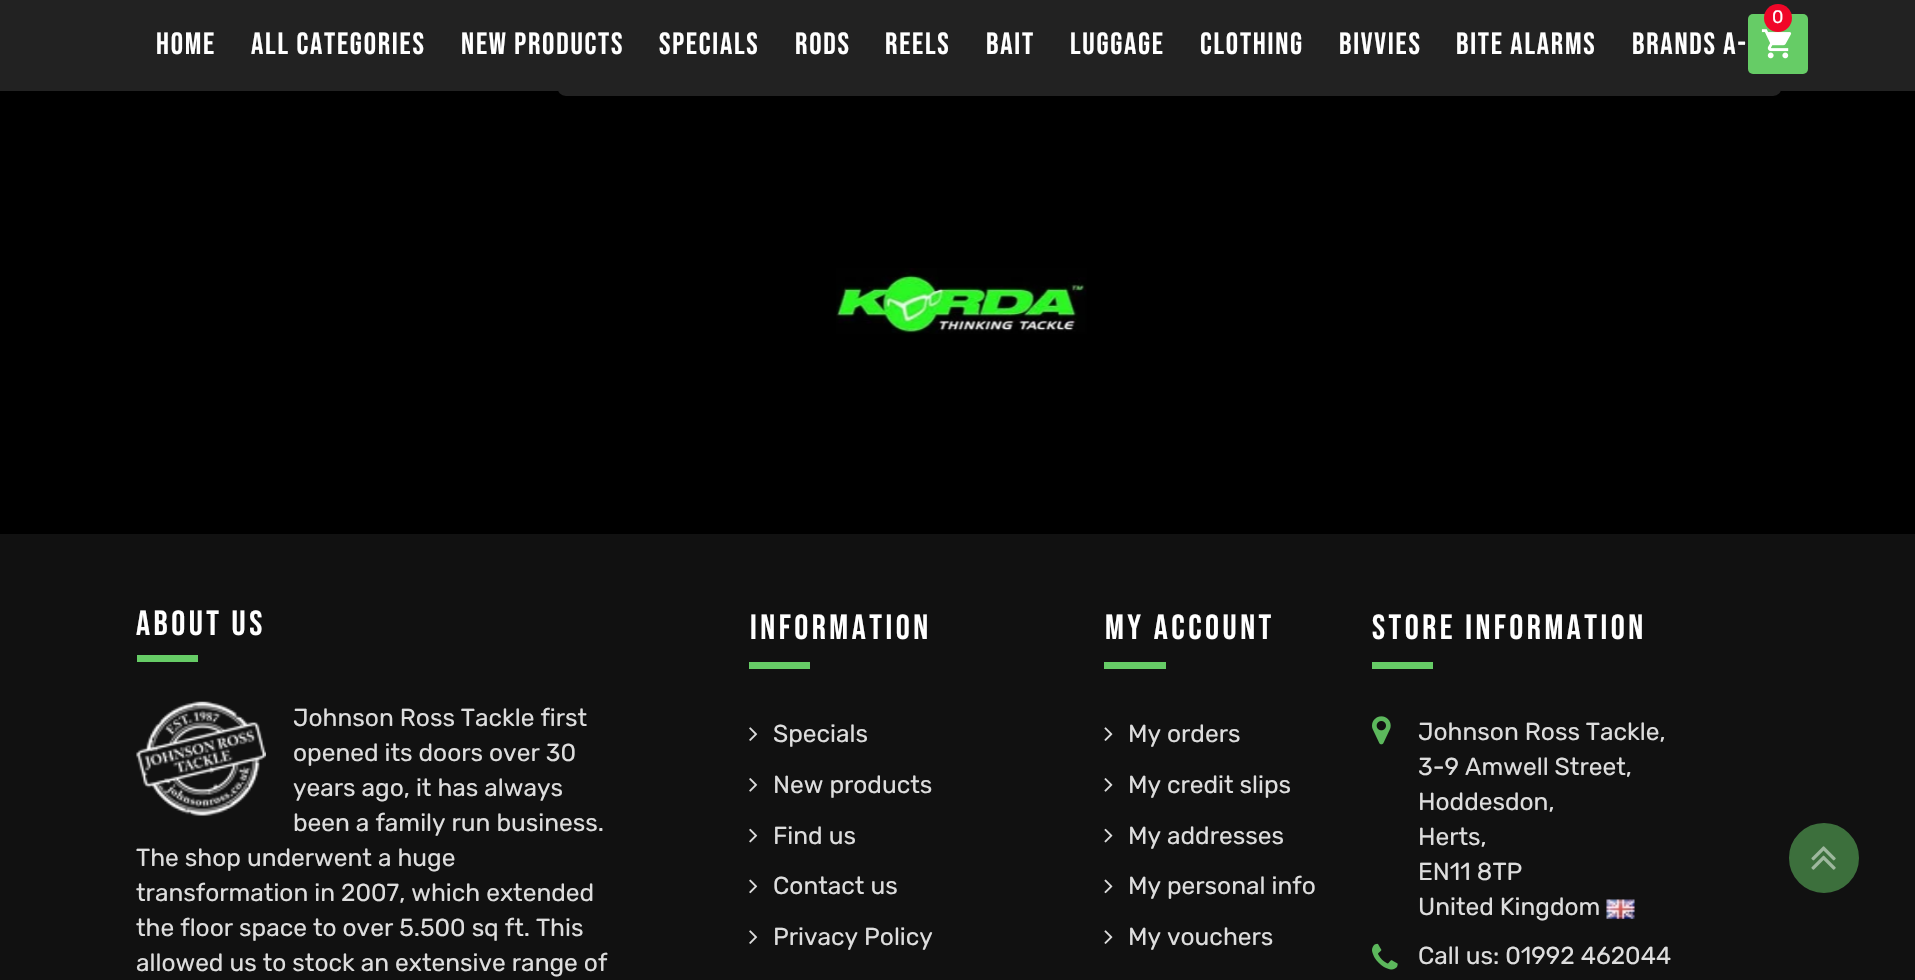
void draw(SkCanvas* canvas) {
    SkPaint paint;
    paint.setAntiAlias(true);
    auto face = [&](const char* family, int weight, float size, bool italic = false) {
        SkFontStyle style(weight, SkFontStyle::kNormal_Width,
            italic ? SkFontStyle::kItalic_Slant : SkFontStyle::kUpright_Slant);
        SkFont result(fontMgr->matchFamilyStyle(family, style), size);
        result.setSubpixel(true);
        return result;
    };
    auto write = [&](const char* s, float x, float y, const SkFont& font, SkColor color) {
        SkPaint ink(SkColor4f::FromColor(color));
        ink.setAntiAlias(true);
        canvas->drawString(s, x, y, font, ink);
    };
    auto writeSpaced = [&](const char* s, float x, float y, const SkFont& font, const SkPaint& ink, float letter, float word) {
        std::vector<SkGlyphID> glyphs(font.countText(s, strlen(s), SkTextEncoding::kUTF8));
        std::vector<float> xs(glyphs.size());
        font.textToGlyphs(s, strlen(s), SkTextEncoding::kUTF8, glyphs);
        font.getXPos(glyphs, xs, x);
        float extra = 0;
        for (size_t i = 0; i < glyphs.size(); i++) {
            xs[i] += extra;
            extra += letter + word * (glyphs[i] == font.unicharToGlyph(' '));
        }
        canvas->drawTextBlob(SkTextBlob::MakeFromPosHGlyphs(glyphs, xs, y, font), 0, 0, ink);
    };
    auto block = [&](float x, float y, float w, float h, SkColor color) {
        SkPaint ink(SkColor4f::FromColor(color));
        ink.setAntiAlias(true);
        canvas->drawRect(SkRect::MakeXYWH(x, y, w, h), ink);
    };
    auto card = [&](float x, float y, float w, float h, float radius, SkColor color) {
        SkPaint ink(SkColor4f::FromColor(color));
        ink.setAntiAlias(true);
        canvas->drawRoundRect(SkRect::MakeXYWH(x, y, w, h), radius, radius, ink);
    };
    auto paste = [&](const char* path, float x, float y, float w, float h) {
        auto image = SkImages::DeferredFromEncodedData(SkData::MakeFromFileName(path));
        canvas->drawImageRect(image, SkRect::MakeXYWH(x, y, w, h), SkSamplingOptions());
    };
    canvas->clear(SK_ColorBLACK);
    paint.setColor(SkColorSetRGB(34, 34, 34));
    canvas->drawRoundRect(SkRect::MakeXYWH(558, 6, 1223, 89), 8, 8, paint);
    paint.setStyle(SkPaint::kStroke_Style);
    paint.setStrokeWidth(2);
    canvas->drawRoundRect(SkRect::MakeXYWH(558, 6, 1223, 89), 8, 8, paint);
    paste("pic1.png", 836, 268, 251, 66);
    block(0, 0, 1915, 91, SkColorSetRGB(34, 34, 34));
    card(1748, 14, 60, 60, 5, SkColorSetRGB(102, 204, 102));
    paste("pic2.png", 1761, 29, 31, 30);
    paint.setStyle(SkPaint::kFill_Style);
    paint.setColor(SkColorSetRGB(240, 6, 40));
    canvas->drawCircle(1778, 18, 14, paint);
    auto kFont1 = face("Rubik", 400, 18);
    write("0", 1772, 23, kFont1, SK_ColorWHITE);
    auto kFont2 = face("Bebas Neue", 400, 30.75f);
    paint.setColor(SK_ColorWHITE);
    writeSpaced("HOME", 156, 54, kFont2, paint, 1.75f, 0);
    writeSpaced("ALL CATEGORIES", 251, 54, kFont2, paint, 1.75f, 0);
    writeSpaced("NEW PRODUCTS", 461, 54, kFont2, paint, 1.75f, 0);
    writeSpaced("SPECIALS", 659, 54, kFont2, paint, 1.75f, 0);
    writeSpaced("RODS", 795, 54, kFont2, paint, 1.75f, 0);
    writeSpaced("REELS", 885, 54, kFont2, paint, 1.75f, 0);
    writeSpaced("BAIT", 986, 54, kFont2, paint, 1.75f, 0);
    writeSpaced("LUGGAGE", 1070, 54, kFont2, paint, 1.75f, 0);
    writeSpaced("CLOTHING", 1200, 54, kFont2, paint, 1.75f, 0);
    writeSpaced("BIVVIES", 1339, 54, kFont2, paint, 1.75f, 0);
    writeSpaced("BITE ALARMS", 1456, 54, kFont2, paint, 1.75f, 0);
    writeSpaced("BRANDS A-", 1632, 54, kFont2, paint, 1.75f, 0);
    block(0, 534, 1915, 446, SkColorSetRGB(17, 17, 17));
    auto kFont3 = face("Bebas Neue", 400, 35);
    writeSpaced("ABOUT US", 136, 635, kFont3, paint, 3.5f, 0);
    block(137, 655, 61, 7, SkColorSetRGB(102, 204, 102));
    paste("pic3.png", 136, 701, 130, 115);
    auto kFont4 = face("Rubik", 400, 24.5f);
    write("Johnson Ross Tackle first", 293, 726, kFont4, SkColorSetRGB(221, 221, 221));
    write("opened its doors over 30", 293, 761, kFont4, SkColorSetRGB(221, 221, 221));
    write("years ago, it has always", 293, 796, kFont4, SkColorSetRGB(221, 221, 221));
    write("been a family run business.", 293, 831, kFont4, SkColorSetRGB(221, 221, 221));
    write("The shop underwent a huge", 136, 866, kFont4, SkColorSetRGB(221, 221, 221));
    write("transformation in 2007, which extended", 136, 901, kFont4, SkColorSetRGB(221, 221, 221));
    write("the floor space to over 5.500 sq ft. This", 136, 936, kFont4, SkColorSetRGB(221, 221, 221));
    write("allowed us to stock an extensive range of", 136, 971, kFont4, SkColorSetRGB(221, 221, 221));
    writeSpaced("INFORMATION", 750, 639, kFont3, paint, 3.5f, 0);
    block(749, 662, 61, 7, SkColorSetRGB(102, 204, 102));
    paste("pic4.png", 749, 727, 9, 14);
    write("Specials", 773, 742, kFont4, SkColorSetRGB(221, 221, 221));
    paste("pic5.png", 749, 778, 9, 14);
    write("New products", 773, 793, kFont4, SkColorSetRGB(221, 221, 221));
    paste("pic6.png", 749, 828, 9, 15);
    write("Find us", 773, 844, kFont4, SkColorSetRGB(221, 221, 221));
    paste("pic7.png", 749, 879, 9, 15);
    write("Contact us", 773, 894, kFont4, SkColorSetRGB(221, 221, 221));
    paste("pic4.png", 749, 930, 9, 14);
    write("Privacy Policy", 773, 945, kFont4, SkColorSetRGB(221, 221, 221));
    writeSpaced("MY ACCOUNT", 1105, 639, kFont3, paint, 3.5f, 0);
    block(1104, 662, 62, 7, SkColorSetRGB(102, 204, 102));
    paste("pic8.png", 1104, 727, 9, 14);
    write("My orders", 1128, 742, kFont4, SkColorSetRGB(221, 221, 221));
    paste("pic9.png", 1104, 778, 9, 14);
    write("My credit slips", 1128, 793, kFont4, SkColorSetRGB(221, 221, 221));
    paste("pic10.png", 1104, 828, 9, 15);
    write("My addresses", 1128, 844, kFont4, SkColorSetRGB(221, 221, 221));
    paste("pic11.png", 1104, 879, 9, 15);
    write("My personal info", 1128, 894, kFont4, SkColorSetRGB(221, 221, 221));
    paste("pic8.png", 1104, 930, 9, 14);
    write("My vouchers", 1128, 945, kFont4, SkColorSetRGB(221, 221, 221));
    writeSpaced("STORE INFORMATION", 1372, 639, kFont3, paint, 3.5f, 0);
    block(1372, 662, 61, 7, SkColorSetRGB(102, 204, 102));
    paste("pic12.png", 1372, 716, 19, 29);
    write("Johnson Ross Tackle,", 1418, 740, kFont4, SkColorSetRGB(221, 221, 221));
    write("3-9 Amwell Street,", 1418, 775, kFont4, SkColorSetRGB(221, 221, 221));
    write("Hoddesdon,", 1418, 810, kFont4, SkColorSetRGB(221, 221, 221));
    write("Herts,", 1418, 845, kFont4, SkColorSetRGB(221, 221, 221));
    write("EN11 8TP", 1418, 880, kFont4, SkColorSetRGB(221, 221, 221));
    write("United Kingdom", 1418, 915, kFont4, SkColorSetRGB(221, 221, 221));
    paste("pic13.png", 1606, 899, 29, 20);
    paste("pic14.png", 1372, 943, 26, 27);
    write("Call us: 01992 462044", 1418, 964, kFont4, SkColorSetRGB(221, 221, 221));
    paint.setColor(SkColorSetRGB(60, 111, 60));
    canvas->drawCircle(1824, 858, 33, paint);
    paint.setStyle(SkPaint::kStroke_Style);
    paint.setStrokeWidth(4);
    canvas->drawCircle(1824, 858, 33, paint);
    paste("pic15.png", 1811, 846, 25, 24);
}
